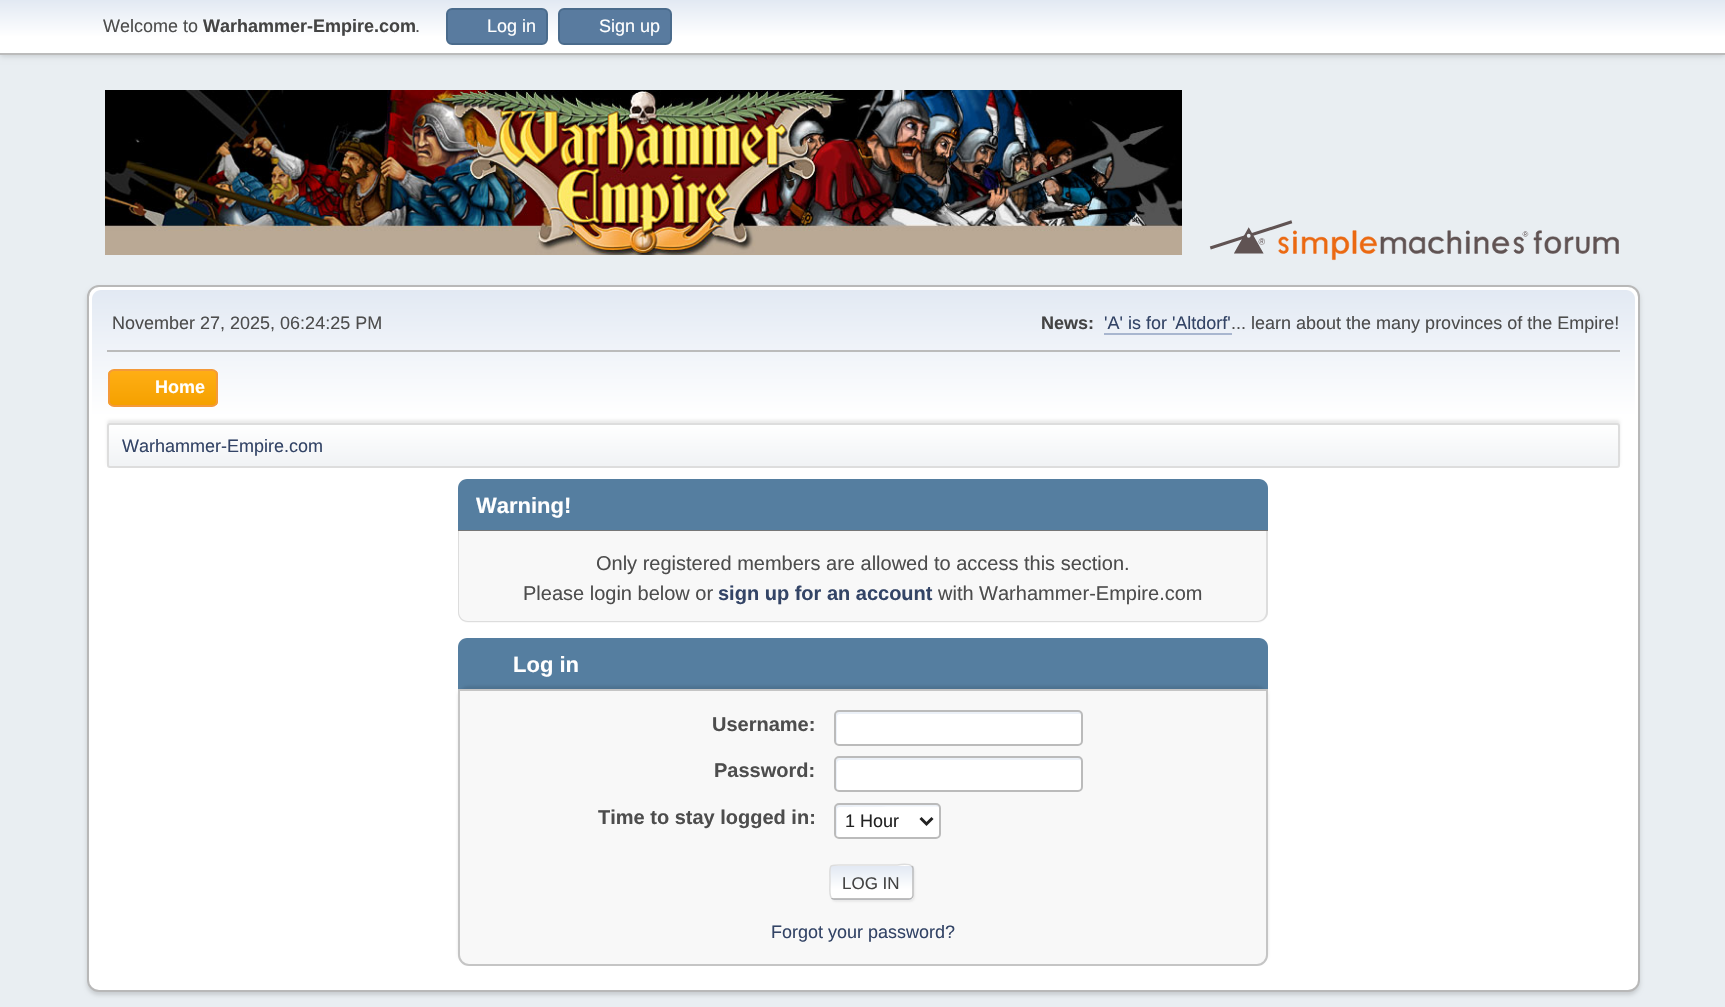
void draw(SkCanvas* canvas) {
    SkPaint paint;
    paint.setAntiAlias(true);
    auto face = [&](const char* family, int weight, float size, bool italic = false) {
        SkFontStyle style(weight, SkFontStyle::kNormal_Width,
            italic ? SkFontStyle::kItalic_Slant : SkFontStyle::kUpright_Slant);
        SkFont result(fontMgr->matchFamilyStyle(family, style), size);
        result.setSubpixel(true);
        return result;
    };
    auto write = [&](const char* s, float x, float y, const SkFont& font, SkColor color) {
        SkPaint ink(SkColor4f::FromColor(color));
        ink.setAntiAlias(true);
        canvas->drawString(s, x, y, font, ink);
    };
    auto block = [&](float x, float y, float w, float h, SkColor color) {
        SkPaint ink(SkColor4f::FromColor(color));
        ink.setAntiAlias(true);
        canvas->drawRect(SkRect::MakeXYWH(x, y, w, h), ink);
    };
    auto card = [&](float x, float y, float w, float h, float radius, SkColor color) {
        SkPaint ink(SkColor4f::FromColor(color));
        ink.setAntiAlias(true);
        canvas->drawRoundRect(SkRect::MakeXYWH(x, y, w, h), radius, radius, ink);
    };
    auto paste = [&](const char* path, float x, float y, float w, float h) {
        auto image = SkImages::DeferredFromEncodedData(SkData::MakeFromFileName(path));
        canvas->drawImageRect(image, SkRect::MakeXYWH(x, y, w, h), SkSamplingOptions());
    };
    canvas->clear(SkColorSetRGB(233, 238, 242));
    paint.setColor(SkColorSetARGB(41, 0, 0, 0));
    paint.setMaskFilter(SkMaskFilter::MakeBlur(kNormal_SkBlurStyle, 3));
    canvas->drawRect(SkRect::MakeXYWH(0, 2, 1725, 54), paint);
    paint.setMaskFilter(nullptr);
    {
        const SkColor colors[] = {SkColorSetRGB(226, 233, 243), SK_ColorWHITE};
        const float stops[] = {0, 0.7f};
        const SkPoint ends[] = {{863, 0}, {863, 53}};
        paint.setShader(SkGradientShader::MakeLinear(ends, colors, stops, 2, SkTileMode::kClamp));
        paint.setAlpha(255);
    }
    canvas->drawRect(SkRect::MakeXYWH(0, 0, 1725, 53), paint);
    block(0, 53, 1725, 2, SkColorSetRGB(187, 187, 187));
    auto kFont1 = face("Liberation Sans", 400, 18);
    write("Welcome to", 103, 32, kFont1, SkColorSetRGB(77, 77, 77));
    auto kFont2 = face("Liberation Sans", 700, 18);
    write("Warhammer-Empire.com", 203, 32, kFont2, SkColorSetRGB(68, 68, 68));
    write(".", 415, 32, kFont1, SkColorSetRGB(77, 77, 77));
    paint.setShader(nullptr);
    paint.setColor(SkColorSetRGB(89, 123, 159));
    canvas->drawRoundRect(SkRect::MakeXYWH(447, 9, 100, 35), 5, 5, paint);
    paint.setStyle(SkPaint::kStroke_Style);
    paint.setStrokeWidth(2);
    paint.setColor(SkColorSetRGB(74, 107, 140));
    canvas->drawRoundRect(SkRect::MakeXYWH(447, 9, 100, 35), 5, 5, paint);
    write("Log in", 487, 32, kFont1, SK_ColorWHITE);
    paint.setStyle(SkPaint::kFill_Style);
    paint.setColor(SkColorSetRGB(89, 123, 159));
    canvas->drawRoundRect(SkRect::MakeXYWH(559, 9, 112, 35), 5, 5, paint);
    paint.setStyle(SkPaint::kStroke_Style);
    paint.setColor(SkColorSetRGB(74, 107, 140));
    canvas->drawRoundRect(SkRect::MakeXYWH(559, 9, 112, 35), 5, 5, paint);
    write("Sign up", 599, 32, kFont1, SK_ColorWHITE);
    paste("pic1.png", 105, 90, 1077, 165);
    paste("pic2.png", 1209, 220, 410, 41);
    paint.setStyle(SkPaint::kFill_Style);
    paint.setColor(SkColorSetARGB(36, 0, 0, 0));
    paint.setMaskFilter(SkMaskFilter::MakeBlur(kNormal_SkBlurStyle, 2));
    canvas->drawRoundRect(SkRect::MakeXYWH(87, 288, 1553, 707), 12, 12, paint);
    paint.setMaskFilter(nullptr);
    paint.setColor(SK_ColorWHITE);
    canvas->drawRoundRect(SkRect::MakeXYWH(88, 286, 1551, 705), 11, 11, paint);
    paint.setStyle(SkPaint::kStroke_Style);
    paint.setColor(SkColorSetRGB(184, 184, 184));
    canvas->drawRoundRect(SkRect::MakeXYWH(88, 286, 1551, 705), 11, 11, paint);
    paint.setStyle(SkPaint::kFill_Style);
    {
        const SkColor colors[] = {SkColorSetRGB(226, 233, 243), SK_ColorWHITE};
        const float stops[] = {0, 0.7f};
        const SkPoint ends[] = {{863, 289}, {863, 471}};
        paint.setShader(SkGradientShader::MakeLinear(ends, colors, stops, 2, SkTileMode::kClamp));
        paint.setAlpha(255);
    }
    canvas->drawPath(SkPathBuilder().moveTo(101, 290).lineTo(1626, 290).cubicTo(1631, 290, 1635, 294, 1635, 299).lineTo(1635, 471).lineTo(92, 471).lineTo(92, 299).cubicTo(92, 294, 96, 290, 101, 290).close().detach(), paint);
    block(107, 350, 1513, 2, SkColorSetRGB(187, 187, 187));
    write("November 27, 2025, 06:24:25 PM", 112, 329, kFont1, SkColorSetRGB(77, 77, 77));
    write("News:", 1041, 329, kFont2, SkColorSetRGB(68, 68, 68));
    write("'A' is for 'Altdorf'", 1104, 329, kFont1, SkColorSetRGB(51, 68, 102));
    write("... learn about the many provinces of the Empire!", 1231, 329, kFont1, SkColorSetRGB(77, 77, 77));
    block(1104, 333, 128, 2, SkColorSetRGB(168, 182, 207));
    canvas->save();
    canvas->clipPath(SkPathBuilder().moveTo(114, 369).lineTo(212, 369).cubicTo(215.5f, 369, 218, 371.5f, 218, 375).lineTo(218, 401).cubicTo(218, 404.5f, 215.5f, 407, 212, 407).lineTo(114, 407).cubicTo(110.5f, 407, 108, 404.5f, 108, 401).lineTo(108, 375).cubicTo(108, 371.5f, 110.5f, 369, 114, 369).close().detach(), true);
    {
        const SkColor colors[] = {SkColorSetRGB(255, 174, 20), SkColorSetRGB(245, 161, 0)};
        const float stops[] = {0, 1};
        const SkPoint ends[] = {{163, 371}, {163, 405}};
        paint.setShader(SkGradientShader::MakeLinear(ends, colors, stops, 2, SkTileMode::kClamp));
        paint.setAlpha(255);
    }
    canvas->drawRect(SkRect::MakeXYWH(108, 371, 110, 34), paint);
    canvas->restore();
    paint.setStyle(SkPaint::kStroke_Style);
    paint.setShader(nullptr);
    paint.setColor(SkColorSetRGB(244, 154, 58));
    canvas->drawRoundRect(SkRect::MakeXYWH(109, 370, 108, 36), 5, 5, paint);
    write("Home", 155, 393, kFont2, SK_ColorWHITE);
    paint.setStyle(SkPaint::kFill_Style);
    paint.setColor(SkColorSetARGB(20, 0, 0, 0));
    paint.setMaskFilter(SkMaskFilter::MakeBlur(kNormal_SkBlurStyle, 1.5f));
    canvas->drawRoundRect(SkRect::MakeXYWH(107, 420, 1513, 45), 3, 3, paint);
    paint.setMaskFilter(nullptr);
    canvas->save();
    canvas->clipPath(SkPathBuilder().moveTo(110, 423).lineTo(1617, 423).cubicTo(1618.5f, 423, 1620, 424.5f, 1620, 426).lineTo(1620, 465).cubicTo(1620, 466.5f, 1618.5f, 468, 1617, 468).lineTo(110, 468).cubicTo(108.5f, 468, 107, 466.5f, 107, 465).lineTo(107, 426).cubicTo(107, 424.5f, 108.5f, 423, 110, 423).close().detach(), true);
    {
        const SkColor colors[] = {SK_ColorWHITE, SkColorSetRGB(241, 243, 245)};
        const float stops[] = {0, 0.95f};
        const SkPoint ends[] = {{863, 424}, {863, 467}};
        paint.setShader(SkGradientShader::MakeLinear(ends, colors, stops, 2, SkTileMode::kClamp));
        paint.setAlpha(255);
    }
    canvas->drawRect(SkRect::MakeXYWH(107, 425, 1513, 42), paint);
    canvas->restore();
    paint.setStyle(SkPaint::kStroke_Style);
    paint.setShader(nullptr);
    paint.setColor(SkColorSetRGB(221, 221, 221));
    canvas->drawRoundRect(SkRect::MakeXYWH(108, 424, 1511, 43), 2, 2, paint);
    write("Warhammer-Empire.com", 122, 452, kFont1, SkColorSetRGB(51, 68, 102));
    paint.setStyle(SkPaint::kFill_Style);
    paint.setColor(SkColorSetRGB(85, 126, 160));
    canvas->drawPath(SkPathBuilder().moveTo(467, 479).lineTo(1259, 479).cubicTo(1264, 479, 1268, 483, 1268, 488).lineTo(1268, 531).lineTo(458, 531).lineTo(458, 488).cubicTo(458, 483, 462, 479, 467, 479).close().detach(), paint);
    block(458, 530, 810, 1, SkColorSetRGB(119, 119, 119));
    auto kFont3 = face("Liberation Sans", 700, 22);
    write("Warning!", 476, 513, kFont3, SK_ColorWHITE);
    paint.setColor(SkColorSetRGB(248, 248, 248));
    canvas->drawPath(SkPathBuilder().moveTo(458, 531).lineTo(1268, 531).lineTo(1268, 612).cubicTo(1268, 618, 1263, 623, 1257, 623).lineTo(469, 623).cubicTo(463, 623, 458, 618, 458, 612).close().detach(), paint);
    paint.setColor(SkColorSetRGB(221, 221, 221));
    canvas->drawPath(SkPathBuilder(SkPathFillType::kEvenOdd).moveTo(458, 531).lineTo(1268, 531).lineTo(1268, 612).cubicTo(1268, 618, 1263, 622, 1257, 622).lineTo(468, 622).cubicTo(462, 622, 458, 618, 458, 612).close().moveTo(459, 531).lineTo(1266, 531).lineTo(1266, 612).cubicTo(1266, 617, 1262, 621, 1257, 621).lineTo(468, 621).cubicTo(463, 621, 459, 617, 459, 612).close().detach(), paint);
    auto kFont4 = face("Liberation Sans", 400, 20);
    write("Only registered members are allowed to access this section.", 596, 570, kFont4, SkColorSetRGB(77, 77, 77));
    write("Please login below or", 523, 600, kFont4, SkColorSetRGB(77, 77, 77));
    auto kFont5 = face("Liberation Sans", 700, 20);
    write("sign up for an account", 718, 600, kFont5, SkColorSetRGB(51, 68, 102));
    write("with Warhammer-Empire.com", 938, 600, kFont4, SkColorSetRGB(77, 77, 77));
    paint.setColor(SkColorSetRGB(85, 126, 160));
    canvas->drawPath(SkPathBuilder().moveTo(467, 638).lineTo(1259, 638).cubicTo(1264, 638, 1268, 642, 1268, 647).lineTo(1268, 690).lineTo(458, 690).lineTo(458, 647).cubicTo(458, 642, 462, 638, 467, 638).close().detach(), paint);
    write("Log in", 513, 672, kFont3, SK_ColorWHITE);
    paint.setColor(SkColorSetARGB(26, 0, 0, 0));
    paint.setMaskFilter(SkMaskFilter::MakeBlur(kNormal_SkBlurStyle, 1.5f));
    canvas->drawRoundRect(SkRect::MakeXYWH(458, 686, 810, 277), 11, 11, paint);
    paint.setMaskFilter(nullptr);
    paint.setColor(SkColorSetRGB(248, 248, 248));
    canvas->drawPath(SkPathBuilder().moveTo(459, 690).lineTo(1267, 690).lineTo(1267, 955).cubicTo(1267, 960.5f, 1262.5f, 965, 1257, 965).lineTo(469, 965).cubicTo(463.5f, 965, 459, 960.5f, 459, 955).close().detach(), paint);
    paint.setStyle(SkPaint::kStroke_Style);
    paint.setColor(SkColorSetRGB(197, 197, 197));
    canvas->drawPath(SkPathBuilder().moveTo(459, 690).lineTo(1267, 690).lineTo(1267, 955).cubicTo(1267, 960.5f, 1262.5f, 965, 1257, 965).lineTo(469, 965).cubicTo(463.5f, 965, 459, 960.5f, 459, 955).close().detach(), paint);
    write("Username:", 712, 731, kFont5, SkColorSetRGB(77, 77, 77));
    card(834, 710, 249, 36, 5, SK_ColorWHITE);
    paint.setStyle(SkPaint::kFill_Style);
    paint.setColor(SkColorSetRGB(236, 241, 248));
    canvas->drawPath(SkPathBuilder().moveTo(840, 714).lineTo(1080, 714).lineTo(1082, 715).lineTo(1082, 714).cubicTo(1082, 712, 1081, 711, 1079, 711).lineTo(839, 711).cubicTo(837, 711, 836, 712, 836, 714).lineTo(836, 741).cubicTo(836, 742, 836, 743, 837, 743).lineTo(837, 717).cubicTo(837, 715, 838, 714, 840, 714).close().detach(), paint);
    paint.setStyle(SkPaint::kStroke_Style);
    paint.setColor(SkColorSetRGB(187, 187, 187));
    canvas->drawRoundRect(SkRect::MakeXYWH(835, 711, 247, 34), 4, 4, paint);
    write("Password:", 714, 777, kFont5, SkColorSetRGB(77, 77, 77));
    card(834, 756, 249, 36, 5, SK_ColorWHITE);
    paint.setStyle(SkPaint::kFill_Style);
    paint.setColor(SkColorSetRGB(236, 241, 248));
    canvas->drawPath(SkPathBuilder().moveTo(840, 760).lineTo(1080, 760).lineTo(1082, 761).cubicTo(1082, 759, 1081, 758, 1079, 758).lineTo(839, 758).cubicTo(837, 758, 836, 759, 836, 761).lineTo(836, 788).cubicTo(836, 789, 836, 790, 837, 790).lineTo(837, 768).cubicTo(837, 766, 836, 760, 840, 760).close().detach(), paint);
    paint.setStyle(SkPaint::kStroke_Style);
    paint.setColor(SkColorSetRGB(187, 187, 187));
    canvas->drawRoundRect(SkRect::MakeXYWH(835, 757, 247, 34), 4, 4, paint);
    write("Time to stay logged in:", 598, 824, kFont5, SkColorSetRGB(77, 77, 77));
    card(834, 803, 107, 36, 5, SK_ColorWHITE);
    paint.setStyle(SkPaint::kFill_Style);
    paint.setColor(SkColorSetRGB(236, 241, 248));
    canvas->drawPath(SkPathBuilder().moveTo(840, 807).cubicTo(850, 807, 938, 806, 939, 807).cubicTo(939, 801, 927, 804, 920, 804).lineTo(855, 804).cubicTo(833, 804, 836, 800, 836, 820).cubicTo(836, 823, 835, 834, 837, 836).lineTo(837, 810).cubicTo(837, 808, 838, 807, 840, 807).close().detach(), paint);
    paint.setStyle(SkPaint::kStroke_Style);
    paint.setColor(SkColorSetRGB(187, 187, 187));
    canvas->drawRoundRect(SkRect::MakeXYWH(835, 804, 105, 34), 4, 4, paint);
    paint.setStrokeWidth(3);
    paint.setColor(SkColorSetRGB(34, 34, 34));
    canvas->drawPath(SkPathBuilder().moveTo(920.5f, 818).lineTo(926.5f, 824).lineTo(932.5f, 818).detach(), paint);
    write("1 Hour", 845, 827, kFont1, SkColorSetRGB(34, 34, 34));
    paint.setStyle(SkPaint::kFill_Style);
    paint.setColor(SkColorSetARGB(145, 221, 221, 221));
    paint.setMaskFilter(SkMaskFilter::MakeBlur(kNormal_SkBlurStyle, 1));
    canvas->drawRoundRect(SkRect::MakeXYWH(831, 866, 84, 36), 5, 5, paint);
    paint.setMaskFilter(nullptr);
    canvas->save();
    canvas->clipPath(SkPathBuilder().moveTo(835, 864).lineTo(909, 864).cubicTo(912, 864, 914, 866, 914, 869).lineTo(914, 895).cubicTo(914, 898, 912, 900, 909, 900).lineTo(835, 900).cubicTo(832, 900, 830, 898, 830, 895).lineTo(830, 869).cubicTo(830, 866, 832, 864, 835, 864).close().detach(), true);
    {
        const SkColor colors[] = {SkColorSetRGB(226, 233, 243), SK_ColorWHITE};
        const float stops[] = {0, 0.7f};
        const SkPoint ends[] = {{872, 833}, {872, 866}};
        paint.setShader(SkGradientShader::MakeLinear(ends, colors, stops, 2, SkTileMode::kClamp));
        paint.setAlpha(255);
    }
    canvas->drawRect(SkRect::MakeXYWH(830, 864, 84, 2), paint);
    {
        const SkColor colors[] = {SkColorSetRGB(226, 233, 243), SK_ColorWHITE};
        const float stops[] = {0, 0.7f};
        const SkPoint ends[] = {{872, 866}, {872, 899}};
        paint.setShader(SkGradientShader::MakeLinear(ends, colors, stops, 2, SkTileMode::kClamp));
        paint.setAlpha(255);
    }
    canvas->drawRect(SkRect::MakeXYWH(830, 866, 84, 33), paint);
    {
        const SkColor colors[] = {SkColorSetRGB(226, 233, 243), SK_ColorWHITE};
        const float stops[] = {0, 0.7f};
        const SkPoint ends[] = {{872, 899}, {872, 932}};
        paint.setShader(SkGradientShader::MakeLinear(ends, colors, stops, 2, SkTileMode::kClamp));
        paint.setAlpha(255);
    }
    canvas->drawRect(SkRect::MakeXYWH(830, 899, 84, 1), paint);
    canvas->restore();
    paint.setStyle(SkPaint::kStroke_Style);
    paint.setStrokeWidth(1.5f);
    paint.setShader(nullptr);
    paint.setColor(SkColorSetRGB(187, 187, 187));
    canvas->drawPath(SkPathBuilder().moveTo(911.5f, 866).cubicTo(912.5f, 866.5f, 913, 867.5f, 913, 868.5f).lineTo(913, 895.5f).cubicTo(913, 896.5f, 912.5f, 897.5f, 911.5f, 898).detach(), paint);
    paint.setColor(SkColorSetRGB(170, 170, 170));
    canvas->drawPath(SkPathBuilder().moveTo(911.5f, 898).cubicTo(911, 899, 910, 899, 909, 899).lineTo(834, 899).cubicTo(833, 899, 832, 899, 831.5f, 898).detach(), paint);
    paint.setColor(SkColorSetRGB(221, 221, 221));
    canvas->drawPath(SkPathBuilder().moveTo(831.5f, 898).cubicTo(829, 896, 830, 885, 830, 882).cubicTo(830, 862.5f, 827, 865, 846.5f, 865).lineTo(896.5f, 865).cubicTo(897, 865, 908.5f, 863, 911.5f, 866).detach(), paint);
    auto kFont6 = face("Liberation Sans", 400, 17);
    write("LOG IN", 842, 889, kFont6, SkColorSetRGB(68, 68, 68));
    write("Forgot your password?", 771, 938, kFont1, SkColorSetRGB(51, 68, 102));
}
